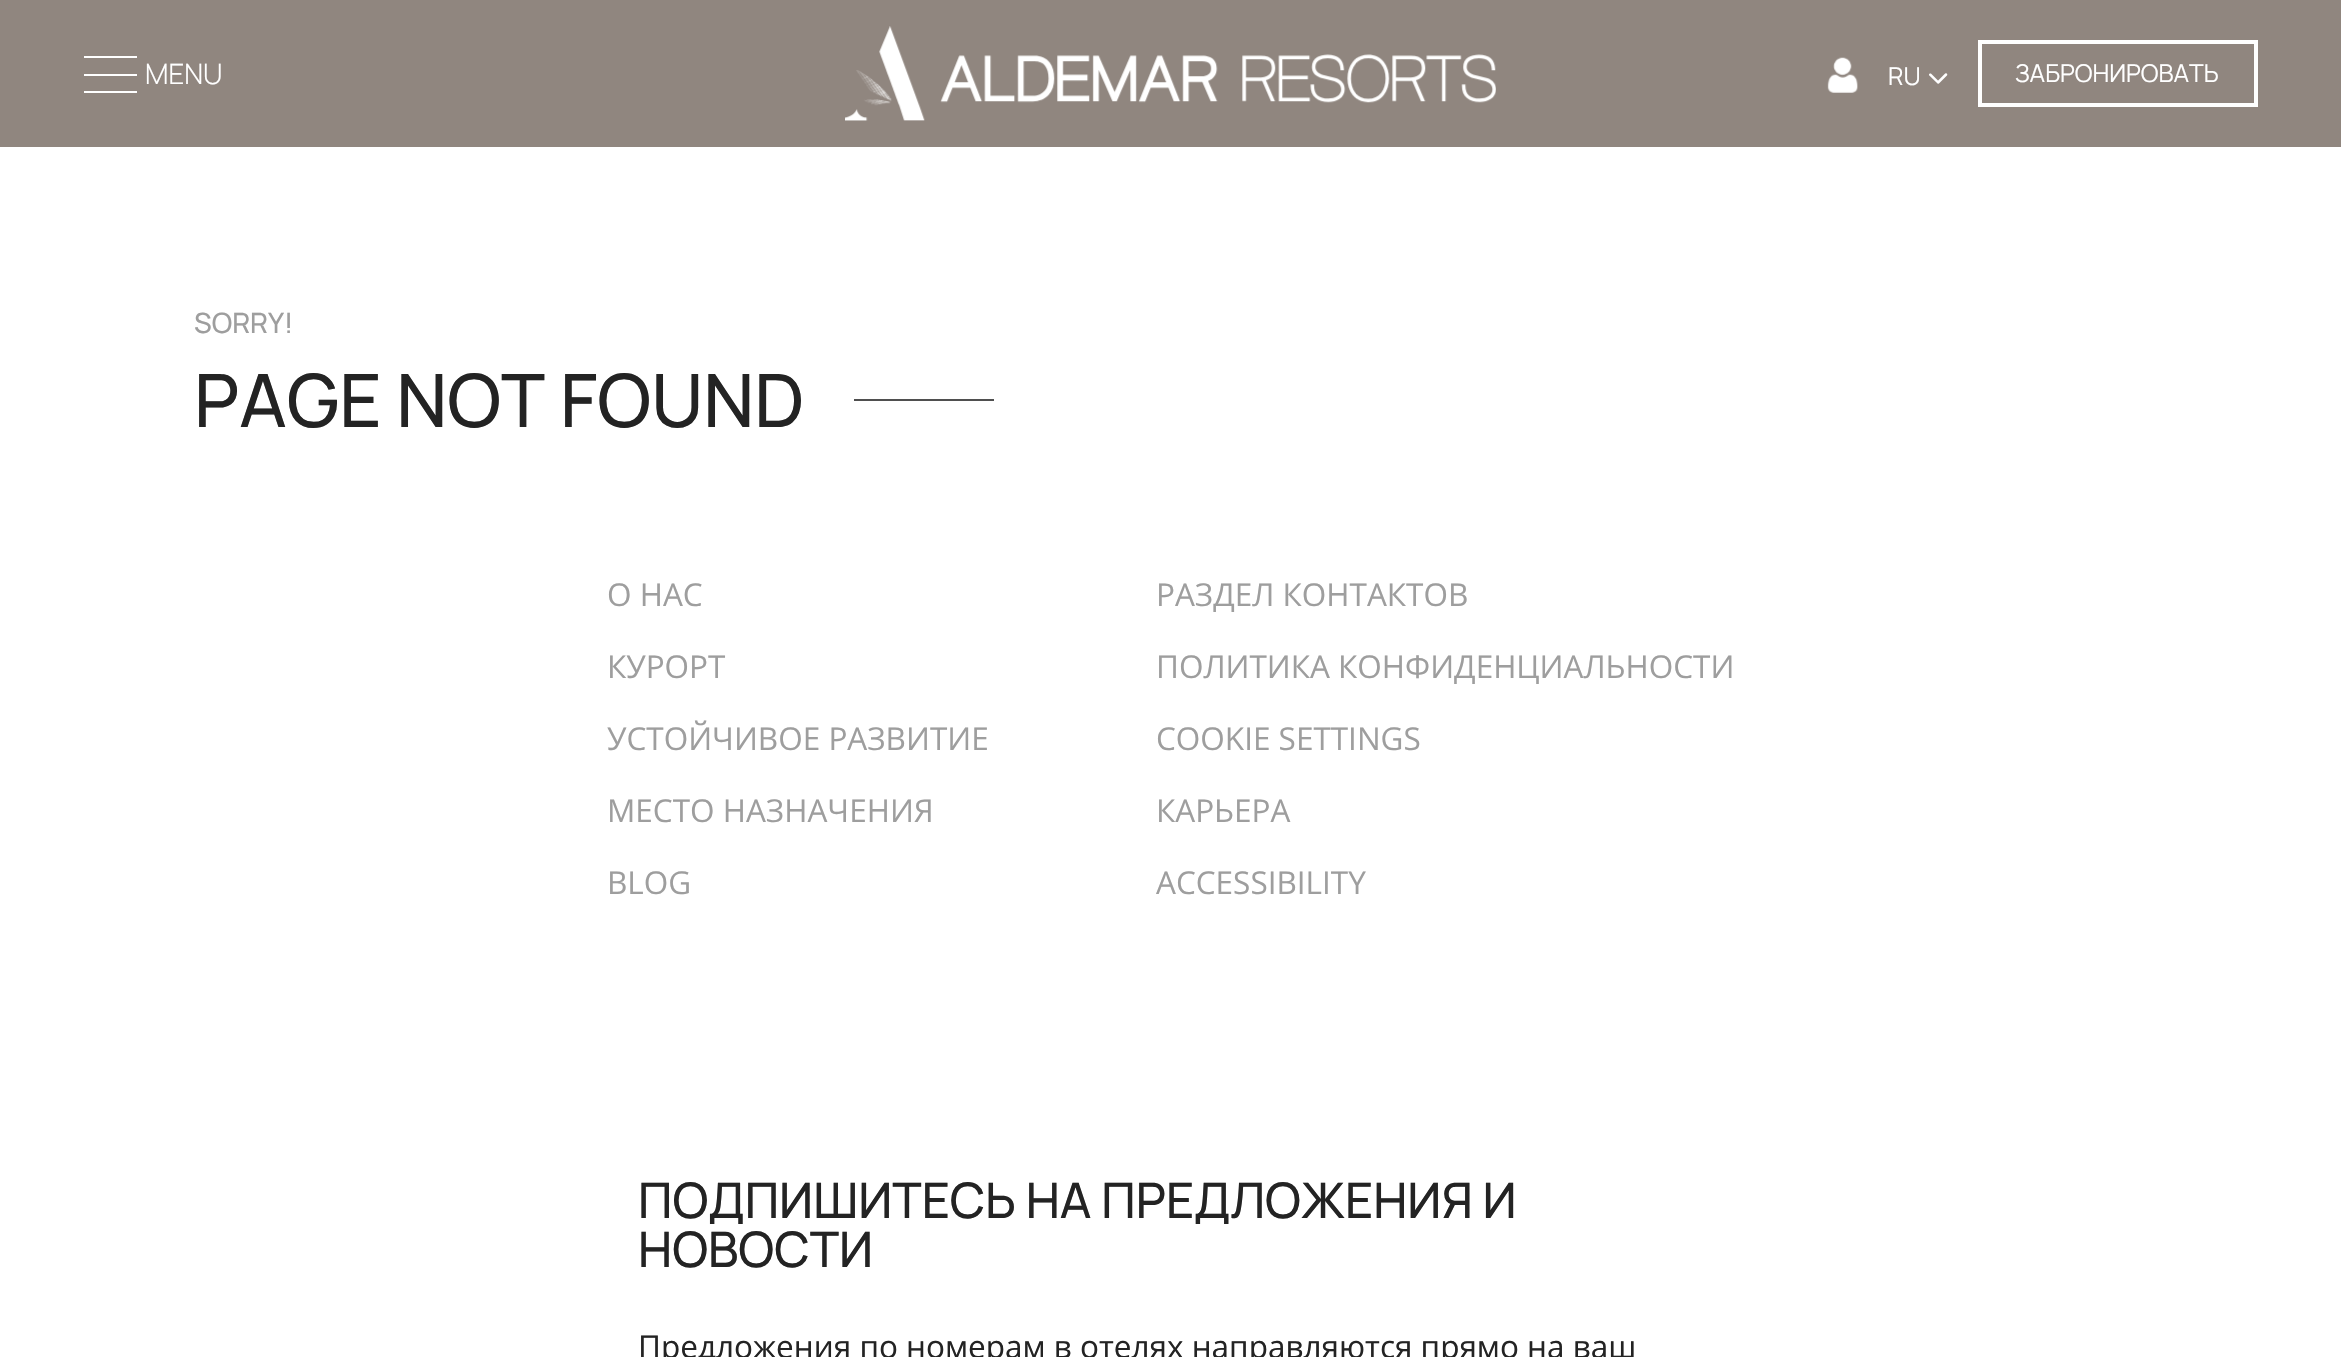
void draw(SkCanvas* canvas) {
    SkPaint paint;
    paint.setAntiAlias(true);
    auto face = [&](const char* family, int weight, float size, bool italic = false) {
        SkFontStyle style(weight, SkFontStyle::kNormal_Width,
            italic ? SkFontStyle::kItalic_Slant : SkFontStyle::kUpright_Slant);
        SkFont result(fontMgr->matchFamilyStyle(family, style), size);
        result.setSubpixel(true);
        return result;
    };
    auto write = [&](const char* s, float x, float y, const SkFont& font, SkColor color) {
        SkPaint ink(SkColor4f::FromColor(color));
        ink.setAntiAlias(true);
        canvas->drawString(s, x, y, font, ink);
    };
    auto block = [&](float x, float y, float w, float h, SkColor color) {
        SkPaint ink(SkColor4f::FromColor(color));
        ink.setAntiAlias(true);
        canvas->drawRect(SkRect::MakeXYWH(x, y, w, h), ink);
    };
    auto paste = [&](const char* path, float x, float y, float w, float h) {
        auto image = SkImages::DeferredFromEncodedData(SkData::MakeFromFileName(path));
        canvas->drawImageRect(image, SkRect::MakeXYWH(x, y, w, h), SkSamplingOptions());
    };
    canvas->clear(SK_ColorWHITE);
    block(0, 0, 2341, 147, SkColorSetRGB(144, 134, 127));
    block(84, 74, 53, 2, SK_ColorWHITE);
    block(84, 56, 53, 2, SK_ColorWHITE);
    block(84, 91, 53, 2, SK_ColorWHITE);
    auto kFont1 = face("Manrope", 300, 28);
    write("MENU", 145, 84, kFont1, SK_ColorWHITE);
    paste("pic1.png", 845, 26, 651, 95);
    paste("pic2.png", 1827, 57, 31, 36);
    auto kFont2 = face("Manrope", 400, 24.5f);
    write("RU", 1888, 85, kFont2, SK_ColorWHITE);
    paste("pic3.png", 1929, 73, 19, 11);
    paint.setStyle(SkPaint::kStroke_Style);
    paint.setStrokeWidth(4);
    paint.setColor(SK_ColorWHITE);
    canvas->drawRect(SkRect::MakeXYWH(1980, 42, 276, 63), paint);
    write("ЗАБРОНИРОВАТЬ", 2015, 82, kFont2, SK_ColorWHITE);
    auto kFont3 = face("Manrope", 500, 28);
    write("SORRY!", 194, 333, kFont3, SkColorSetRGB(158, 158, 158));
    auto kFont4 = face("Manrope", 500, 73.5f);
    write("PAGE NOT FOUND", 194, 427, kFont4, SkColorSetRGB(35, 35, 35));
    block(854, 399, 140, 2, SkColorSetRGB(79, 79, 79));
    auto kFont5 = face("Open Sans", 400, 31.5f);
    write("О НАС", 607, 606, kFont5, SkColorSetRGB(158, 158, 158));
    write("КУРОРТ", 607, 678, kFont5, SkColorSetRGB(158, 158, 158));
    write("УСТОЙЧИВОЕ РАЗВИТИЕ", 607, 750, kFont5, SkColorSetRGB(158, 158, 158));
    write("МЕСТО НАЗНАЧЕНИЯ", 607, 822, kFont5, SkColorSetRGB(158, 158, 158));
    write("BLOG", 607, 894, kFont5, SkColorSetRGB(158, 158, 158));
    write("РАЗДЕЛ КОНТАКТОВ", 1156, 606, kFont5, SkColorSetRGB(158, 158, 158));
    write("ПОЛИТИКА КОНФИДЕНЦИАЛЬНОСТИ", 1156, 678, kFont5, SkColorSetRGB(158, 158, 158));
    write("COOKIE SETTINGS", 1156, 750, kFont5, SkColorSetRGB(158, 158, 158));
    write("КАРЬЕРА", 1156, 822, kFont5, SkColorSetRGB(158, 158, 158));
    write("ACCESSIBILITY", 1156, 894, kFont5, SkColorSetRGB(158, 158, 158));
    auto kFont6 = face("Manrope", 500, 49);
    write("ПОДПИШИТЕСЬ НА ПРЕДЛОЖЕНИЯ И", 638, 1218, kFont6, SkColorSetRGB(35, 35, 35));
    write("НОВОСТИ", 638, 1267, kFont6, SkColorSetRGB(35, 35, 35));
    write("Предложения по номерам в отелях направляются прямо на ваш", 638, 1358, kFont5, SkColorSetRGB(35, 35, 35));
}
